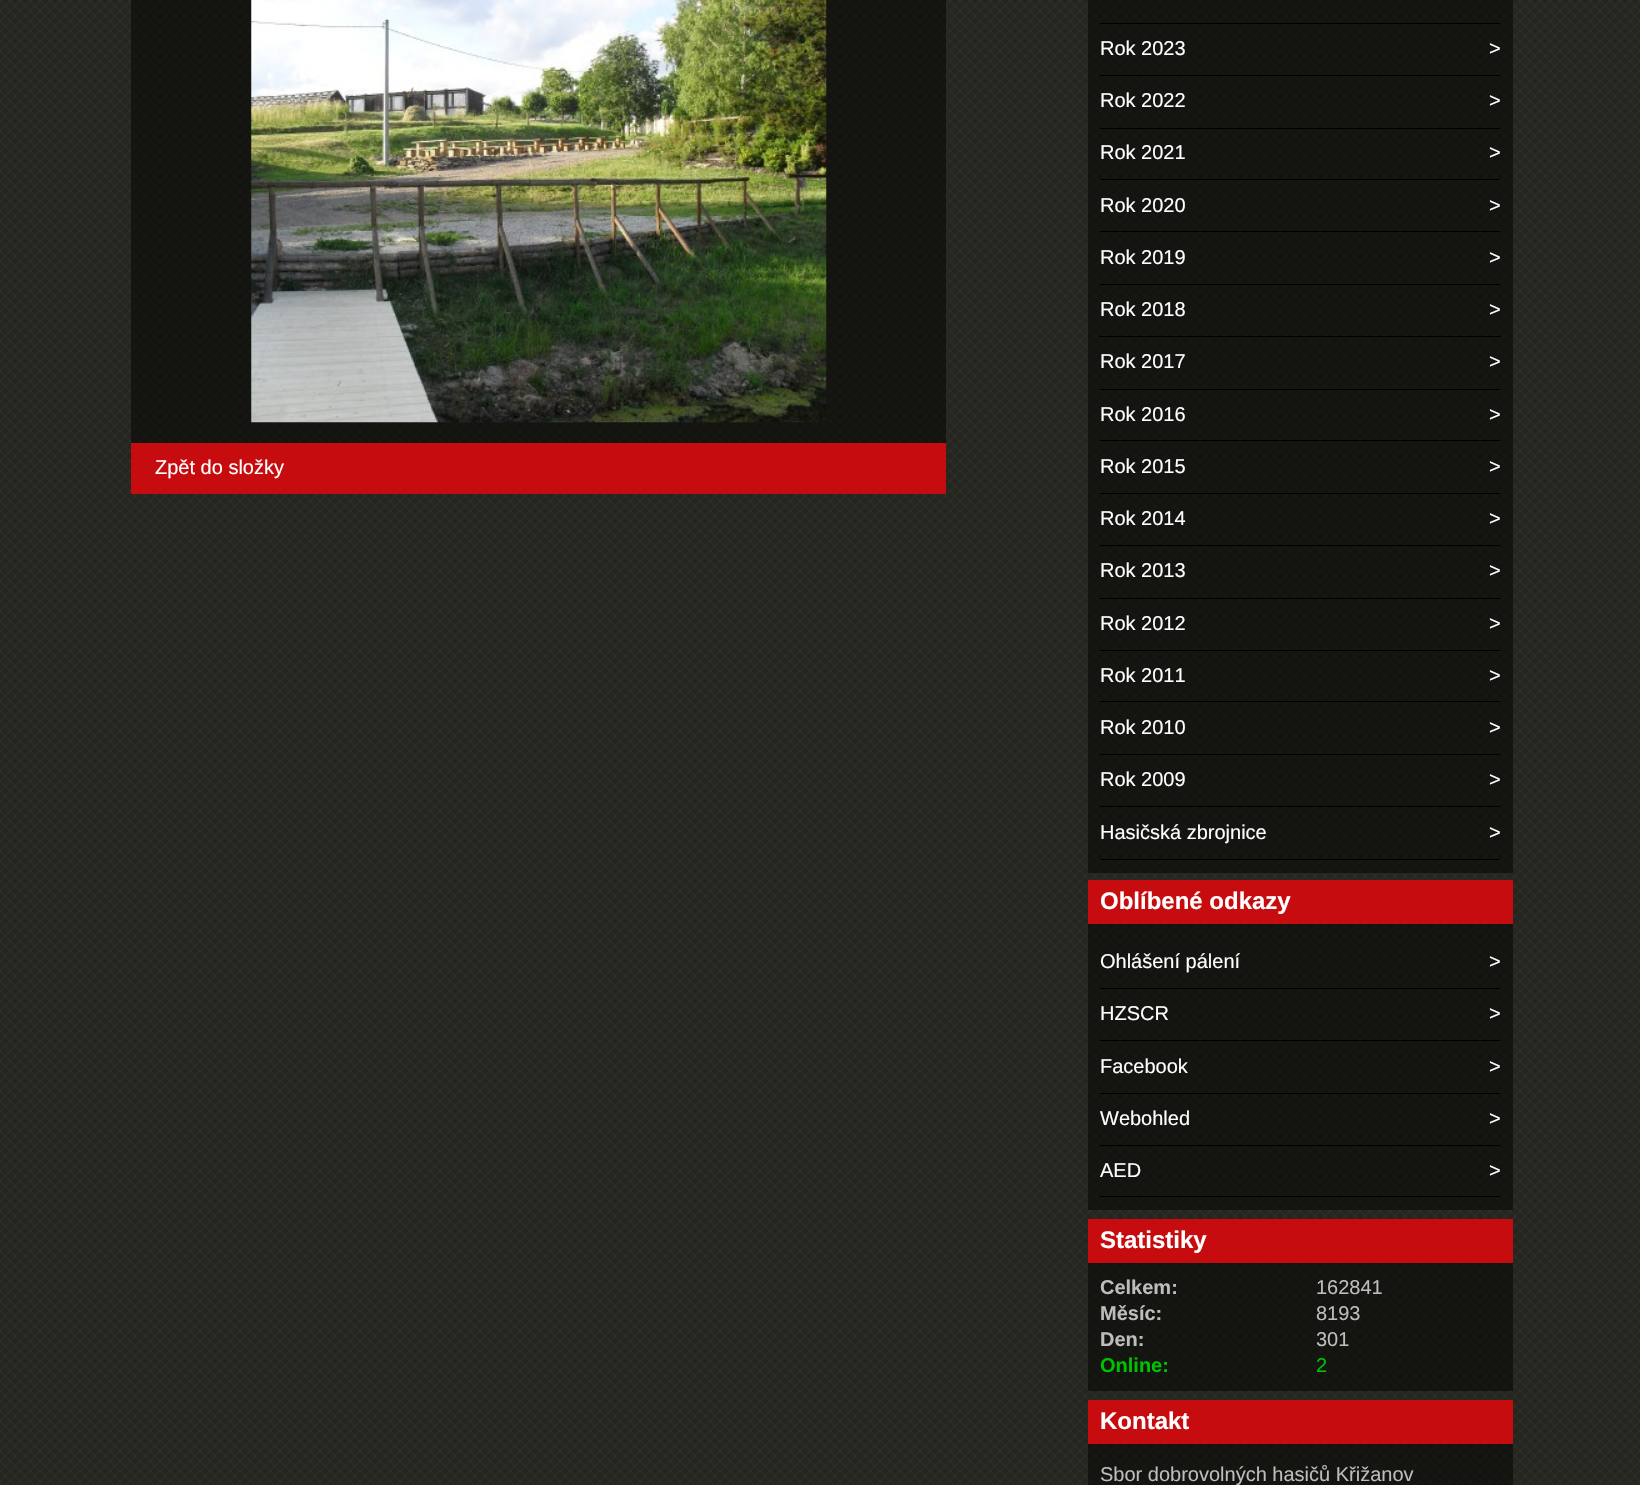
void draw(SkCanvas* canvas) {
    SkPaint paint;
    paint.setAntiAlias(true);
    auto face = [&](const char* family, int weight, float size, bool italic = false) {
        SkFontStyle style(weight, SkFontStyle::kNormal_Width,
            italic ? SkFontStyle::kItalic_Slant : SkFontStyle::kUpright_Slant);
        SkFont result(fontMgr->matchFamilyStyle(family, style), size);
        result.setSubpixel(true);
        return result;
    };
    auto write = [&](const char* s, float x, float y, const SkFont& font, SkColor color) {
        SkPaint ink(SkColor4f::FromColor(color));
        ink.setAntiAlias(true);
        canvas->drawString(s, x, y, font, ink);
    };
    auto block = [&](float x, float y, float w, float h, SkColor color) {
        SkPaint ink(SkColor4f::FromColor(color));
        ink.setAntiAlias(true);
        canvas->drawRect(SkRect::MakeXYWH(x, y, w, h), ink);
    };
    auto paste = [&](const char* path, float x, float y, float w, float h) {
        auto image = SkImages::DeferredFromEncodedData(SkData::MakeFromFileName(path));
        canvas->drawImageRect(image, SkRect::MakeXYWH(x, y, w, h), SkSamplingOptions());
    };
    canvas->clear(SkColorSetRGB(37, 37, 31));
    paste("pic1.png", 0, 0, 1640, 1485);
    block(131, 0, 815, 443, SkColorSetARGB(128, 0, 0, 0));
    paste("pic2.png", 251, 0, 576, 423);
    block(131, 443, 815, 51, SkColorSetRGB(198, 12, 15));
    auto kFont1 = face("Liberation Sans", 400, 20);
    write("Zpět do složky", 155, 474, kFont1, SK_ColorWHITE);
    block(1088, 0, 425, 873, SkColorSetARGB(128, 0, 0, 0));
    block(1100, 23, 400, 1, SK_ColorBLACK);
    block(1100, 75, 400, 1, SK_ColorBLACK);
    write("Rok 2023", 1100, 55, kFont1, SK_ColorWHITE);
    write(">", 1489, 55, kFont1, SK_ColorWHITE);
    block(1100, 128, 400, 1, SK_ColorBLACK);
    write("Rok 2022", 1100, 107, kFont1, SK_ColorWHITE);
    write(">", 1489, 107, kFont1, SK_ColorWHITE);
    block(1100, 179, 400, 1, SK_ColorBLACK);
    write("Rok 2021", 1100, 159, kFont1, SK_ColorWHITE);
    write(">", 1489, 159, kFont1, SK_ColorWHITE);
    block(1100, 231, 400, 1, SK_ColorBLACK);
    write("Rok 2020", 1100, 212, kFont1, SK_ColorWHITE);
    write(">", 1489, 212, kFont1, SK_ColorWHITE);
    block(1100, 284, 400, 1, SK_ColorBLACK);
    write("Rok 2019", 1100, 264, kFont1, SK_ColorWHITE);
    write(">", 1489, 264, kFont1, SK_ColorWHITE);
    block(1100, 336, 400, 1, SK_ColorBLACK);
    write("Rok 2018", 1100, 316, kFont1, SK_ColorWHITE);
    write(">", 1489, 316, kFont1, SK_ColorWHITE);
    block(1100, 389, 400, 1, SK_ColorBLACK);
    write("Rok 2017", 1100, 368, kFont1, SK_ColorWHITE);
    write(">", 1489, 368, kFont1, SK_ColorWHITE);
    block(1100, 440, 400, 1, SK_ColorBLACK);
    write("Rok 2016", 1100, 421, kFont1, SK_ColorWHITE);
    write(">", 1489, 421, kFont1, SK_ColorWHITE);
    block(1100, 493, 400, 1, SK_ColorBLACK);
    write("Rok 2015", 1100, 473, kFont1, SK_ColorWHITE);
    write(">", 1489, 473, kFont1, SK_ColorWHITE);
    block(1100, 545, 400, 1, SK_ColorBLACK);
    write("Rok 2014", 1100, 525, kFont1, SK_ColorWHITE);
    write(">", 1489, 525, kFont1, SK_ColorWHITE);
    block(1100, 598, 400, 1, SK_ColorBLACK);
    write("Rok 2013", 1100, 577, kFont1, SK_ColorWHITE);
    write(">", 1489, 577, kFont1, SK_ColorWHITE);
    block(1100, 650, 400, 1, SK_ColorBLACK);
    write("Rok 2012", 1100, 630, kFont1, SK_ColorWHITE);
    write(">", 1489, 630, kFont1, SK_ColorWHITE);
    block(1100, 701, 400, 1, SK_ColorBLACK);
    write("Rok 2011", 1100, 682, kFont1, SK_ColorWHITE);
    write(">", 1489, 682, kFont1, SK_ColorWHITE);
    block(1100, 754, 400, 1, SK_ColorBLACK);
    write("Rok 2010", 1100, 734, kFont1, SK_ColorWHITE);
    write(">", 1489, 734, kFont1, SK_ColorWHITE);
    block(1100, 806, 400, 1, SK_ColorBLACK);
    write("Rok 2009", 1100, 786, kFont1, SK_ColorWHITE);
    write(">", 1489, 786, kFont1, SK_ColorWHITE);
    block(1100, 859, 400, 1, SK_ColorBLACK);
    write("Hasičská zbrojnice", 1100, 839, kFont1, SK_ColorWHITE);
    write(">", 1489, 839, kFont1, SK_ColorWHITE);
    block(1088, 880, 425, 44, SkColorSetRGB(198, 12, 15));
    auto kFont2 = face("Liberation Sans", 700, 24);
    write("Oblíbené odkazy", 1100, 909, kFont2, SK_ColorWHITE);
    block(1088, 924, 425, 286, SkColorSetARGB(128, 0, 0, 0));
    block(1100, 988, 400, 1, SK_ColorBLACK);
    write("Ohlášení pálení", 1100, 968, kFont1, SK_ColorWHITE);
    write(">", 1489, 968, kFont1, SK_ColorWHITE);
    block(1100, 1040, 400, 1, SK_ColorBLACK);
    write("HZSCR", 1100, 1020, kFont1, SK_ColorWHITE);
    write(">", 1489, 1020, kFont1, SK_ColorWHITE);
    block(1100, 1093, 400, 1, SK_ColorBLACK);
    write("Facebook", 1100, 1073, kFont1, SK_ColorWHITE);
    write(">", 1489, 1073, kFont1, SK_ColorWHITE);
    block(1100, 1145, 400, 1, SK_ColorBLACK);
    write("Webohled", 1100, 1125, kFont1, SK_ColorWHITE);
    write(">", 1489, 1125, kFont1, SK_ColorWHITE);
    block(1100, 1196, 400, 1, SK_ColorBLACK);
    write("AED", 1100, 1177, kFont1, SK_ColorWHITE);
    write(">", 1489, 1177, kFont1, SK_ColorWHITE);
    block(1088, 1219, 425, 44, SkColorSetRGB(198, 12, 15));
    write("Statistiky", 1100, 1248, kFont2, SK_ColorWHITE);
    block(1088, 1263, 425, 128, SkColorSetARGB(128, 0, 0, 0));
    auto kFont3 = face("Liberation Sans", 700, 20);
    write("Celkem:", 1100, 1294, kFont3, SkColorSetRGB(189, 189, 189));
    write("162841", 1316, 1294, kFont1, SkColorSetRGB(189, 189, 189));
    write("Měsíc:", 1100, 1320, kFont3, SkColorSetRGB(189, 189, 189));
    write("8193", 1316, 1320, kFont1, SkColorSetRGB(189, 189, 189));
    write("Den:", 1100, 1346, kFont3, SkColorSetRGB(189, 189, 189));
    write("301", 1316, 1346, kFont1, SkColorSetRGB(189, 189, 189));
    write("Online:", 1100, 1372, kFont3, SkColorSetRGB(0, 195, 0));
    write("2", 1316, 1372, kFont1, SkColorSetRGB(0, 195, 0));
    block(1088, 1400, 425, 44, SkColorSetRGB(198, 12, 15));
    write("Kontakt", 1100, 1429, kFont2, SK_ColorWHITE);
    block(1088, 1444, 425, 41, SkColorSetARGB(128, 0, 0, 0));
    write("Sbor dobrovolných hasičů Křižanov", 1100, 1481, kFont1, SkColorSetRGB(189, 189, 189));
}
